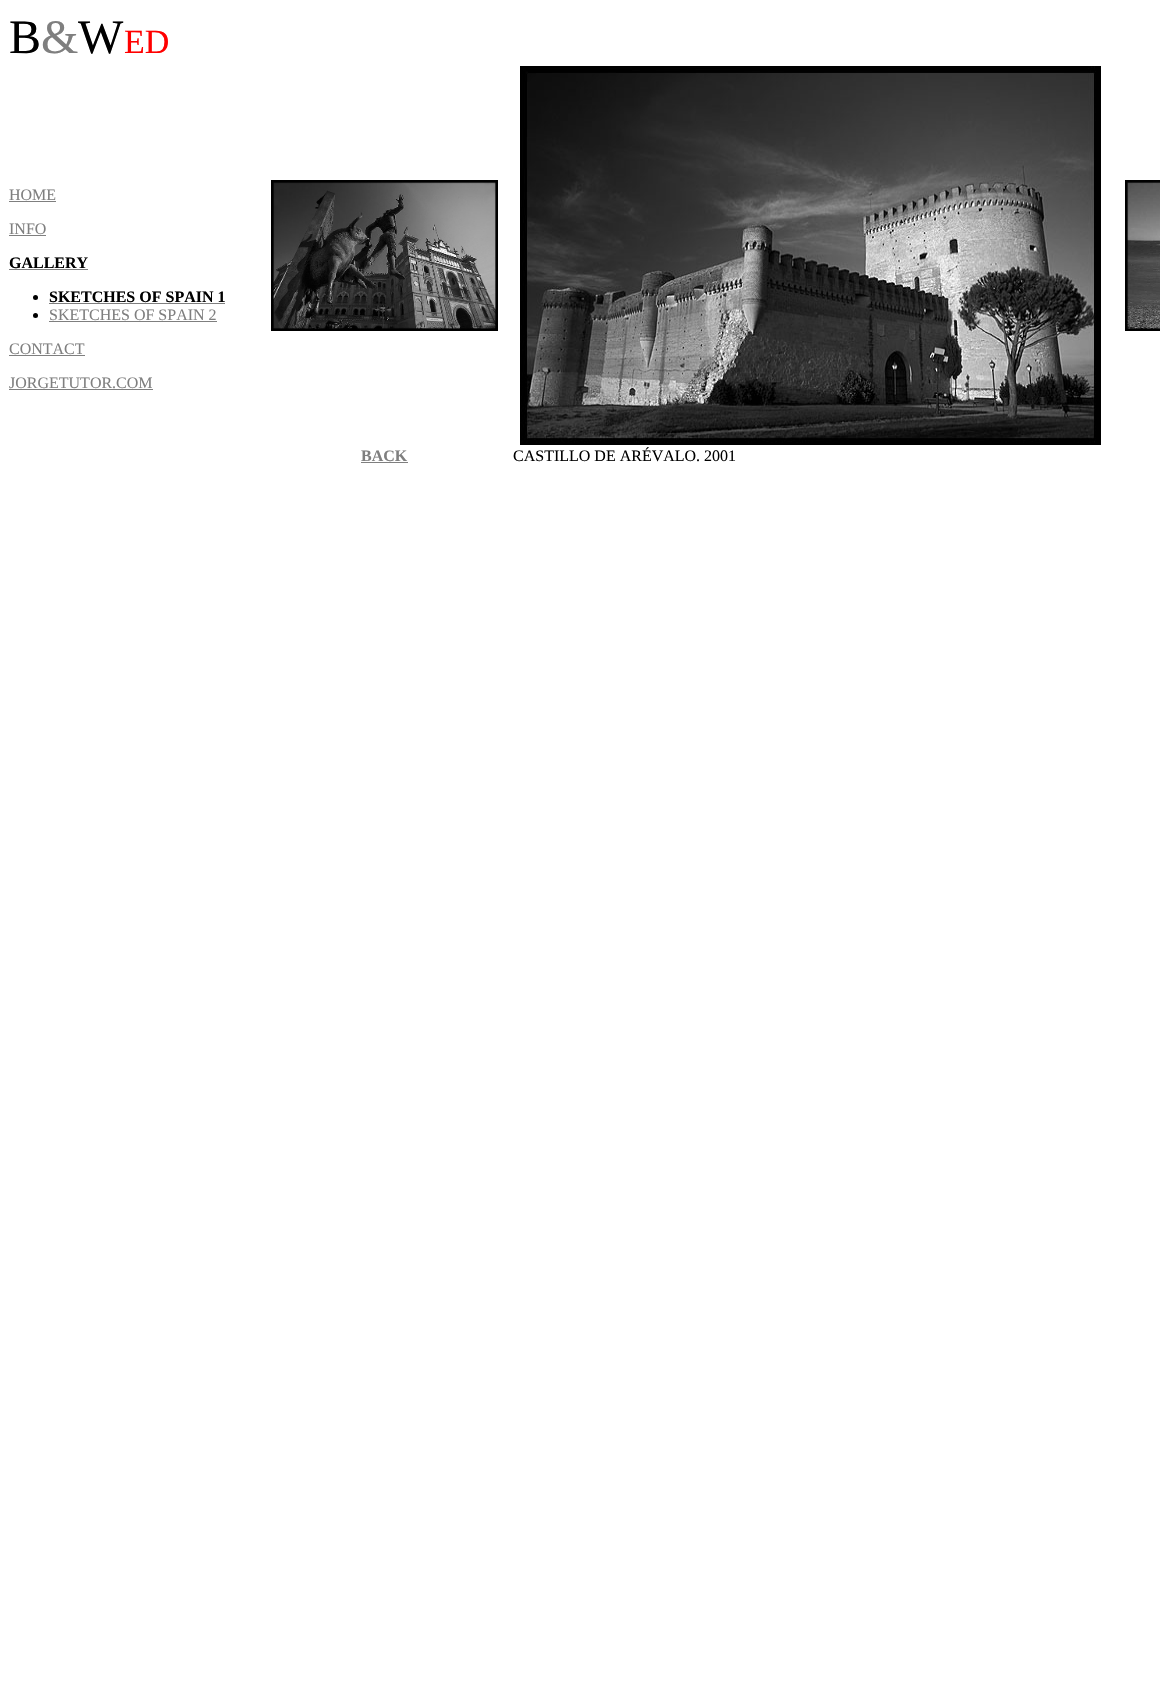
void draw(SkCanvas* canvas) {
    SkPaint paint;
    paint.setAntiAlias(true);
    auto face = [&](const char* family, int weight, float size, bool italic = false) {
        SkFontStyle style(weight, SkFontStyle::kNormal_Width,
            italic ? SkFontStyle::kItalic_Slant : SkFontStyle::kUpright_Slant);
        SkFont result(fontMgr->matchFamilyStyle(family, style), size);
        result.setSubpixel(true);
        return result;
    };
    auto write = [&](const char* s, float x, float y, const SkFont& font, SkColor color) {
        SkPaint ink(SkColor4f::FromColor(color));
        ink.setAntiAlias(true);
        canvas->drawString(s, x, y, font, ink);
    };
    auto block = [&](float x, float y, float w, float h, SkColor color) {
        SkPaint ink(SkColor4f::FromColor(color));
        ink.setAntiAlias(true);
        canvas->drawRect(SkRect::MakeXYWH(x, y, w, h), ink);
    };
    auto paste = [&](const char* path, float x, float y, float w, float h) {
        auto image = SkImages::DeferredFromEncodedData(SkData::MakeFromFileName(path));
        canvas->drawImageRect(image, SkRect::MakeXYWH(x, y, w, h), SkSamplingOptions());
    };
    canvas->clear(SK_ColorWHITE);
    auto kFont1 = face("Liberation Serif", 400, 48);
    write("B", 9, 53, kFont1, SK_ColorBLACK);
    write("&", 41, 53, kFont1, SkColorSetRGB(127, 127, 127));
    write("W", 78, 53, kFont1, SK_ColorBLACK);
    auto kFont2 = face("Liberation Serif", 400, 34);
    write("ED", 124, 53, kFont2, SkColorSetRGB(255, 0, 0));
    auto kFont3 = face("Liberation Serif", 400, 16);
    write("HOME", 9, 200, kFont3, SkColorSetRGB(127, 127, 127));
    block(9, 201, 47, 1, SkColorSetRGB(127, 127, 127));
    write("INFO", 9, 234, kFont3, SkColorSetRGB(127, 127, 127));
    block(9, 235, 37, 1, SkColorSetRGB(127, 127, 127));
    auto kFont4 = face("Liberation Serif", 700, 16);
    write("GALLERY", 9, 268, kFont4, SK_ColorBLACK);
    block(9, 269, 79, 1, SkColorSetRGB(127, 127, 127));
    paint.setColor(SK_ColorBLACK);
    canvas->drawCircle(35.5f, 297.5f, 2.5f, paint);
    write("SKETCHES OF SPAIN 1", 49, 302, kFont4, SK_ColorBLACK);
    block(49, 303, 176, 1, SkColorSetRGB(127, 127, 127));
    canvas->drawCircle(35.5f, 315.5f, 2.5f, paint);
    write("SKETCHES OF SPAIN 2", 49, 320, kFont3, SkColorSetRGB(127, 127, 127));
    block(49, 321, 168, 1, SkColorSetRGB(127, 127, 127));
    write("CONTACT", 9, 354, kFont3, SkColorSetRGB(127, 127, 127));
    block(9, 355, 76, 1, SkColorSetRGB(127, 127, 127));
    write("JORGETUTOR.COM", 9, 388, kFont3, SkColorSetRGB(127, 127, 127));
    block(9, 389, 144, 1, SkColorSetRGB(127, 127, 127));
    paste("pic1.png", 271, 180, 227, 151);
    paste("pic2.png", 520, 66, 581, 379);
    paste("pic3.png", 1125, 180, 35, 151);
    write("BACK", 361, 461, kFont4, SkColorSetRGB(127, 127, 127));
    block(361, 462, 47, 1, SkColorSetRGB(127, 127, 127));
    write("CASTILLO DE ARÉVALO. 2001", 513, 461, kFont3, SK_ColorBLACK);
}
